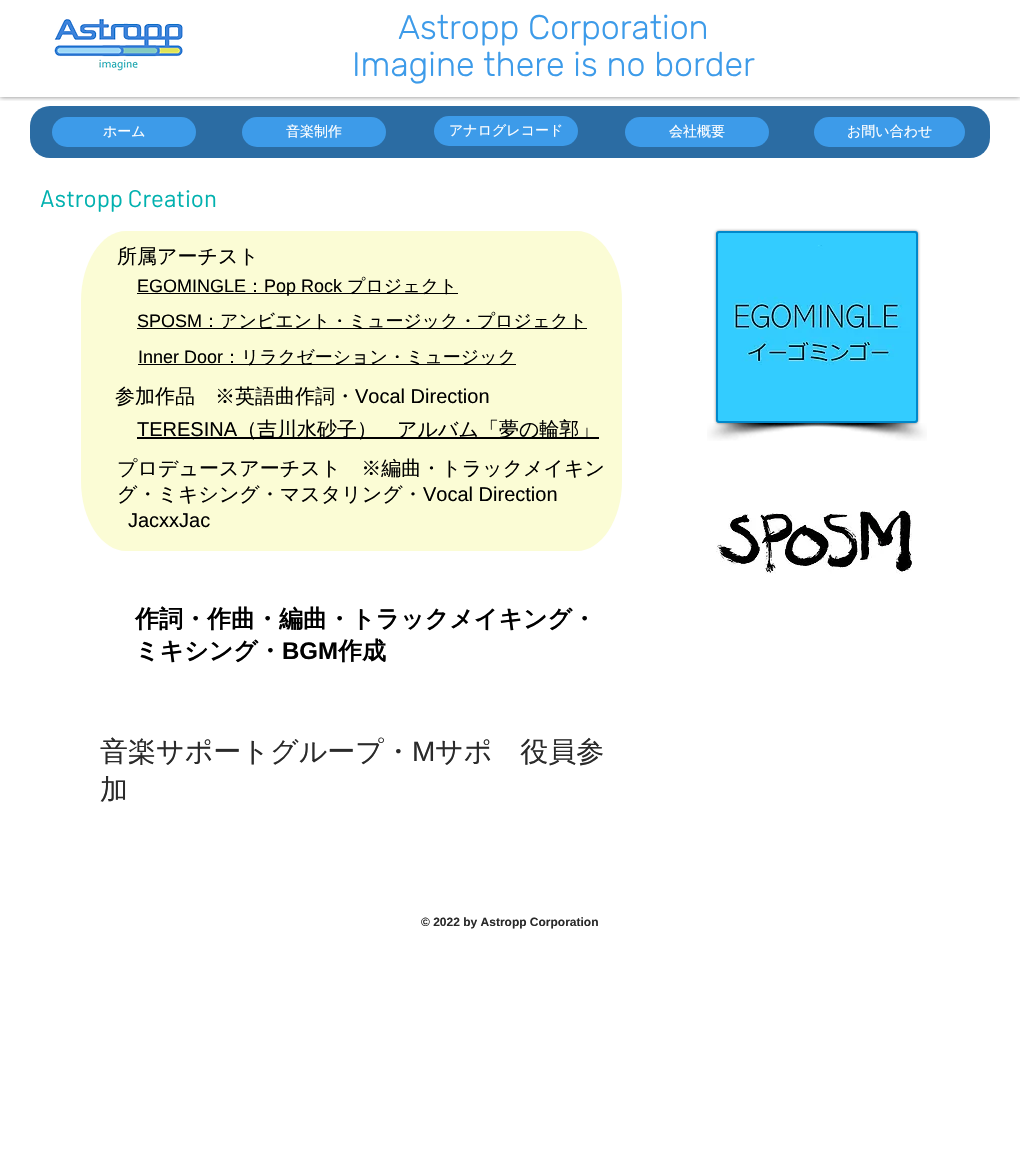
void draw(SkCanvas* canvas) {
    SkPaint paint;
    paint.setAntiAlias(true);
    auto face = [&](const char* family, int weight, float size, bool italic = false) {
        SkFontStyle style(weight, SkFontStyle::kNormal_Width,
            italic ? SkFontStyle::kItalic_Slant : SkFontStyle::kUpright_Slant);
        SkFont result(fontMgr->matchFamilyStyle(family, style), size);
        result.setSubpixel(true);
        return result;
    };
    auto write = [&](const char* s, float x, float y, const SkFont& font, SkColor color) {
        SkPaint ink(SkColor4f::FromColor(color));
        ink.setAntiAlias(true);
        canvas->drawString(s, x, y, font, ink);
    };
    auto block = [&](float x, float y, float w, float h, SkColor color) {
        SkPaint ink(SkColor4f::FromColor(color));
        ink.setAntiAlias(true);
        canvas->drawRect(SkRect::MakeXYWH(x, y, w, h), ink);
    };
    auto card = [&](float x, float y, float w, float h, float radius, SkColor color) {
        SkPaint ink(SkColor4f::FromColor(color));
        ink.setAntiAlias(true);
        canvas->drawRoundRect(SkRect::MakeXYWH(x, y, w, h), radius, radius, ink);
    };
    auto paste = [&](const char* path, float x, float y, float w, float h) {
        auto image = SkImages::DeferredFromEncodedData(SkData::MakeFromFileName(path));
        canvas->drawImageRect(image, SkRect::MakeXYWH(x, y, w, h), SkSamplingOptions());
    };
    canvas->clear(SK_ColorWHITE);
    canvas->save();
    canvas->clipRect(SkRect::MakeXYWH(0, 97, 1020, 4));
    paint.setColor(SkColorSetARGB(128, 0, 0, 0));
    paint.setMaskFilter(SkMaskFilter::MakeBlur(kNormal_SkBlurStyle, 2.5f));
    canvas->drawRect(SkRect::MakeXYWH(0, 0, 1020, 97), paint);
    paint.setMaskFilter(nullptr);
    canvas->restore();
    paste("pic1.png", 54, 19, 129, 52);
    auto kFont1 = face("Rubik", 300, 34);
    write("Astropp Corporation", 398, 39, kFont1, SkColorSetRGB(61, 155, 233));
    write("Imagine there is no border", 352, 76, kFont1, SkColorSetRGB(61, 155, 233));
    card(30, 106, 960, 52, 20, SkColorSetRGB(43, 108, 163));
    card(52, 117, 144, 30, 15, SkColorSetRGB(61, 155, 233));
    auto kFont2 = face("WenQuanYi Zen Hei", 500, 14);
    write("ホーム", 103, 136, kFont2, SK_ColorWHITE);
    card(242, 117, 144, 30, 15, SkColorSetRGB(61, 155, 233));
    write("音楽制作", 286, 136, kFont2, SK_ColorWHITE);
    card(434, 116, 144, 30, 15, SkColorSetRGB(61, 155, 233));
    write("アナログレコード", 449, 135, kFont2, SK_ColorWHITE);
    card(625, 117, 144, 30, 15, SkColorSetRGB(61, 155, 233));
    write("会社概要", 669, 136, kFont2, SK_ColorWHITE);
    card(814, 117, 151, 30, 15, SkColorSetRGB(61, 155, 233));
    write("お問い合わせ", 847, 136, kFont2, SK_ColorWHITE);
    auto kFont3 = face("Barlow", 400, 24);
    write("Astropp Creation", 40, 207, kFont3, SkColorSetRGB(1, 177, 175));
    paint.setColor(SkColorSetRGB(251, 252, 213));
    canvas->drawPath(SkPathBuilder().moveTo(577, 551).lineTo(126, 551).cubicTo(102, 551, 81, 520, 81, 481).lineTo(81, 301).cubicTo(81, 263, 101, 231, 126, 231).lineTo(577, 231).cubicTo(601, 231, 622, 262, 622, 301).lineTo(622, 481).cubicTo(622, 520, 601, 551, 577, 551).close().detach(), paint);
    paint.setColor(SkColorSetARGB(128, 0, 0, 0));
    paint.setMaskFilter(SkMaskFilter::MakeBlur(kNormal_SkBlurStyle, 1.5f));
    canvas->drawRoundRect(SkRect::MakeXYWH(716, 231, 202, 192), 3, 3, paint);
    paint.setMaskFilter(nullptr);
    paint.setColor(SkColorSetRGB(0, 136, 203));
    canvas->drawRoundRect(SkRect::MakeXYWH(717, 232, 200, 190), 2, 2, paint);
    paint.setStyle(SkPaint::kStroke_Style);
    paint.setStrokeWidth(2);
    canvas->drawRoundRect(SkRect::MakeXYWH(717, 232, 200, 190), 2, 2, paint);
    paste("pic2.png", 718, 233, 198, 188);
    paste("pic3.png", 707, 423, 149, 18);
    paste("pic4.png", 796, 423, 131, 18);
    auto kFont4 = face("WenQuanYi Zen Hei", 500, 20);
    write("所属アーチスト", 117, 263, kFont4, SK_ColorBLACK);
    auto kFont5 = face("Liberation Sans", 400, 18);
    write("EGOMINGLE", 137, 292, kFont5, SK_ColorBLACK);
    auto kFont6 = face("WenQuanYi Zen Hei", 500, 18);
    write("：", 246, 292, kFont6, SK_ColorBLACK);
    block(137, 293, 321, 1, SK_ColorBLACK);
    write("Pop Rock", 264, 292, kFont5, SK_ColorBLACK);
    write("プロジェクト", 347, 292, kFont6, SK_ColorBLACK);
    write("SPOSM", 137, 327, kFont5, SK_ColorBLACK);
    block(137, 328, 450, 1, SK_ColorBLACK);
    write("：アンビエント・ミュージック・プロジェクト", 202, 327, kFont6, SK_ColorBLACK);
    write("Inner Door", 138, 363, kFont5, SK_ColorBLACK);
    block(138, 364, 378, 1, SK_ColorBLACK);
    write("：リラクゼーション・ミュージック", 223, 363, kFont6, SK_ColorBLACK);
    write("参加作品　※英語曲作詞・", 115, 403, kFont4, SK_ColorBLACK);
    auto kFont7 = face("Liberation Sans", 400, 20);
    write("Vocal Direction", 355, 403, kFont7, SK_ColorBLACK);
    write("TERESINA", 137, 436, kFont7, SK_ColorBLACK);
    block(137, 437, 462, 2, SK_ColorBLACK);
    write("（吉川水砂子）　アルバム「夢の輪郭」", 237, 436, kFont4, SK_ColorBLACK);
    write("プロデュースアーチスト　※編曲・トラックメイキン", 117, 475, kFont4, SK_ColorBLACK);
    write("グ・ミキシング・マスタリング・", 117, 501, kFont4, SK_ColorBLACK);
    write("Vocal Direction", 423, 501, kFont7, SK_ColorBLACK);
    write("JacxxJac", 128, 527, kFont7, SK_ColorBLACK);
    paste("pic5.png", 716, 510, 196, 64);
    auto kFont8 = face("WenQuanYi Zen Hei", 700, 24);
    write("作詞・作曲・編曲・トラックメイキング・", 135, 627, kFont8, SK_ColorBLACK);
    write("ミキシング・", 135, 659, kFont8, SK_ColorBLACK);
    auto kFont9 = face("Liberation Sans", 700, 24);
    write("BGM", 282, 659, kFont9, SK_ColorBLACK);
    write("作成", 338, 659, kFont8, SK_ColorBLACK);
    auto kFont10 = face("WenQuanYi Zen Hei", 500, 28);
    write("音楽サポートグループ・", 100, 761, kFont10, SkColorSetRGB(42, 42, 42));
    auto kFont11 = face("Liberation Sans", 400, 28);
    write("M", 412, 761, kFont11, SkColorSetRGB(42, 42, 42));
    write("サポ　役員参", 435, 761, kFont10, SkColorSetRGB(42, 42, 42));
    write("加", 100, 799, kFont10, SkColorSetRGB(42, 42, 42));
    auto kFont12 = face("Liberation Sans", 700, 12);
    write("© 2022 by Astropp Corporation", 421, 926, kFont12, SkColorSetRGB(42, 42, 42));
}
